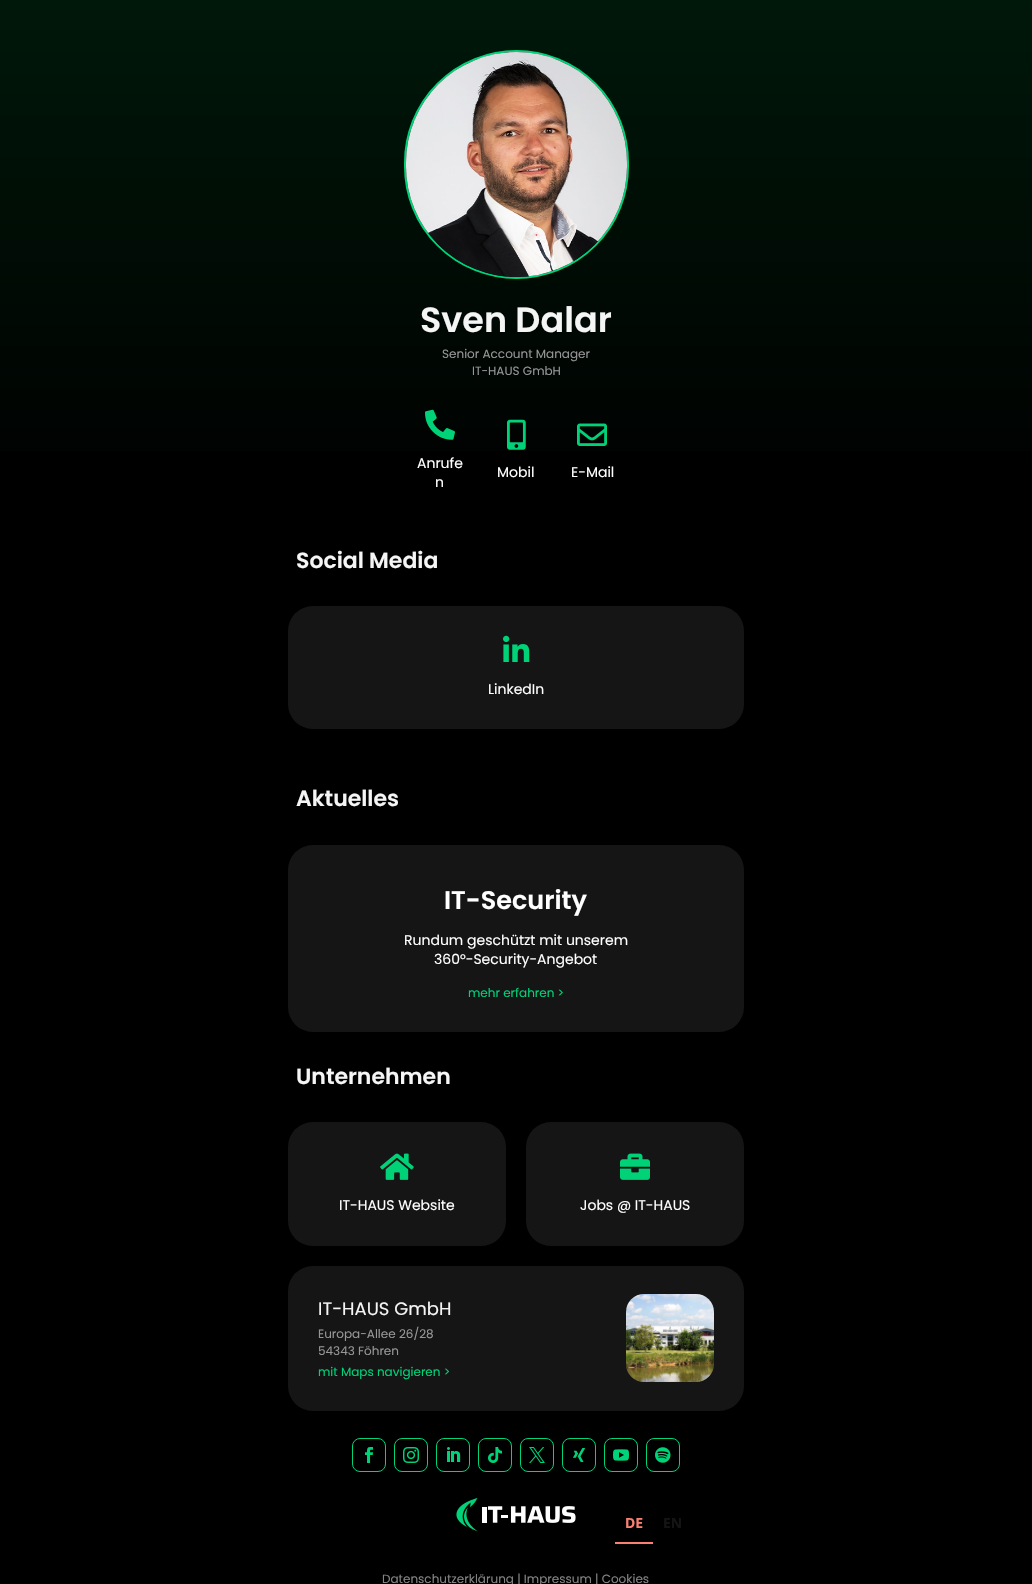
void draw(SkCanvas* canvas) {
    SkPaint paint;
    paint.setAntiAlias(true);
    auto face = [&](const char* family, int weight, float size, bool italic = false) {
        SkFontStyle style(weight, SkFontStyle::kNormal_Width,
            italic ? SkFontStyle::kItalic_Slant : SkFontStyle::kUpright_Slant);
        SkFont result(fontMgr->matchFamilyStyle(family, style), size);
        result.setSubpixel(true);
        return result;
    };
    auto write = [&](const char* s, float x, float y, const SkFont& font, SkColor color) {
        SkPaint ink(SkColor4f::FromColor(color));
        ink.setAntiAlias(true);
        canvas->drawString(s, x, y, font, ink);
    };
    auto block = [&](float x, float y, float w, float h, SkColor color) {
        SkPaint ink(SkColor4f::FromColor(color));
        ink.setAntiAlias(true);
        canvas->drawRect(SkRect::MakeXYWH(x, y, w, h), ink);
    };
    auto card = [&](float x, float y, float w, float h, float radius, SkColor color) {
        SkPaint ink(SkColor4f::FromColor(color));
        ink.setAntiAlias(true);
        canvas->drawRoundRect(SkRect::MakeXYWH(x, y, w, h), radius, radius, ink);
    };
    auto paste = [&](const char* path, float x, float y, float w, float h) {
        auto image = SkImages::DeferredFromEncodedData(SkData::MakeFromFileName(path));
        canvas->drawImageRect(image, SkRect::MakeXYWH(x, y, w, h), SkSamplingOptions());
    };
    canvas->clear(SK_ColorBLACK);
    {
        const SkColor colors[] = {SkColorSetRGB(0, 24, 10), SK_ColorBLACK};
        const float stops[] = {0, 1};
        const SkPoint ends[] = {{516, 0}, {516, 503}};
        paint.setShader(SkGradientShader::MakeLinear(ends, colors, stops, 2, SkTileMode::kClamp));
        paint.setAlpha(255);
    }
    canvas->drawRect(SkRect::MakeXYWH(0, 0, 1032, 451), paint);
    paint.setStyle(SkPaint::kStroke_Style);
    paint.setStrokeWidth(2);
    paint.setShader(nullptr);
    paint.setColor(SkColorSetRGB(0, 210, 120));
    canvas->drawRoundRect(SkRect::MakeXYWH(405, 51, 223, 227), 111.5f, 111.5f, paint);
    paste("pic1.png", 406, 52, 221, 225);
    auto kFont1 = face("Poppins", 600, 35);
    write("Sven Dalar", 420, 332, kFont1, SkColorSetRGB(245, 245, 245));
    auto kFont2 = face("Poppins", 400, 12);
    write("Senior Account Manager", 442, 358, kFont2, SkColorSetRGB(150, 150, 150));
    write("IT-HAUS GmbH", 472, 375, kFont2, SkColorSetRGB(150, 150, 150));
    paste("pic2.png", 425, 409, 30, 31);
    auto kFont3 = face("Poppins", 400, 14);
    write("Anrufe", 417, 468, kFont3, SK_ColorWHITE);
    write("n", 435, 487, kFont3, SK_ColorWHITE);
    paste("pic3.png", 507, 419, 19, 31);
    write("Mobil", 497, 477, kFont3, SK_ColorWHITE);
    paste("pic4.png", 577, 423, 30, 23);
    write("E-Mail", 571, 477, kFont3, SK_ColorWHITE);
    auto kFont4 = face("Poppins", 600, 22);
    write("Social Media", 296, 568, kFont4, SkColorSetRGB(245, 245, 245));
    card(288, 606, 456, 123, 25, SkColorSetRGB(21, 21, 21));
    paste("pic5.png", 503, 635, 27, 27);
    write("LinkedIn", 488, 694, kFont3, SK_ColorWHITE);
    write("Aktuelles", 296, 806, kFont4, SkColorSetRGB(245, 245, 245));
    card(288, 845, 456, 187, 25, SkColorSetRGB(21, 21, 21));
    auto kFont5 = face("Poppins", 600, 25.5f);
    write("IT-Security", 444, 909, kFont5, SK_ColorWHITE);
    write("Rundum geschützt mit unserem", 404, 945, kFont3, SK_ColorWHITE);
    write("360°-Security-Angebot", 434, 964, kFont3, SK_ColorWHITE);
    write("mehr erfahren >", 468, 997, kFont2, SkColorSetRGB(0, 210, 120));
    write("Unternehmen", 296, 1084, kFont4, SkColorSetRGB(245, 245, 245));
    card(288, 1122, 218, 124, 25, SkColorSetRGB(21, 21, 21));
    paste("pic6.png", 380, 1153, 34, 27);
    write("IT-HAUS Website", 339, 1210, kFont3, SK_ColorWHITE);
    card(526, 1122, 218, 124, 25, SkColorSetRGB(21, 21, 21));
    paste("pic7.png", 620, 1153, 30, 27);
    write("Jobs @ IT-HAUS", 580, 1210, kFont3, SK_ColorWHITE);
    card(288, 1266, 456, 145, 25, SkColorSetRGB(21, 21, 21));
    auto kFont6 = face("Poppins", 400, 18);
    write("IT-HAUS GmbH", 318, 1315, kFont6, SkColorSetRGB(245, 245, 245));
    paste("pic8.png", 626, 1294, 88, 88);
    write("Europa-Allee 26/28", 318, 1338, kFont2, SkColorSetRGB(150, 150, 150));
    write("54343 Föhren", 318, 1355, kFont2, SkColorSetRGB(150, 150, 150));
    write("mit Maps navigieren >", 318, 1376, kFont2, SkColorSetRGB(0, 210, 120));
    paint.setStrokeWidth(1);
    canvas->drawRoundRect(SkRect::MakeXYWH(352.5f, 1438.5f, 33, 33), 7.5f, 7.5f, paint);
    paste("pic9.png", 365, 1447, 8, 16);
    canvas->drawRoundRect(SkRect::MakeXYWH(394.5f, 1438.5f, 33, 33), 7.5f, 7.5f, paint);
    paste("pic10.png", 403, 1447, 16, 16);
    canvas->drawRoundRect(SkRect::MakeXYWH(436.5f, 1438.5f, 33, 33), 7.5f, 7.5f, paint);
    paste("pic11.png", 447, 1447, 14, 15);
    canvas->drawRoundRect(SkRect::MakeXYWH(478.5f, 1438.5f, 33, 33), 7.5f, 7.5f, paint);
    paste("pic12.png", 488, 1447, 14, 16);
    canvas->drawRoundRect(SkRect::MakeXYWH(520.5f, 1438.5f, 33, 33), 7.5f, 7.5f, paint);
    paste("pic13.png", 529, 1447, 16, 16);
    canvas->drawRoundRect(SkRect::MakeXYWH(562.5f, 1438.5f, 33, 33), 7.5f, 7.5f, paint);
    paste("pic14.png", 573, 1448, 12, 14);
    canvas->drawRoundRect(SkRect::MakeXYWH(604.5f, 1438.5f, 33, 33), 7.5f, 7.5f, paint);
    paste("pic15.png", 613, 1449, 16, 12);
    canvas->drawRoundRect(SkRect::MakeXYWH(646.5f, 1438.5f, 33, 33), 7.5f, 7.5f, paint);
    paste("pic16.png", 655, 1447, 16, 16);
    paste("pic17.png", 456, 1498, 120, 33);
    write("Datenschutzerklärung | Impressum | Cookies", 382, 1583, kFont2, SkColorSetRGB(132, 132, 132));
    auto kFont7 = face("Noto Sans", 700, 14);
    write("DE", 625, 1528, kFont7, SkColorSetRGB(250, 128, 114));
    block(615, 1542, 38, 2, SkColorSetRGB(250, 128, 114));
    write("EN", 663, 1528, kFont7, SkColorSetRGB(20, 20, 20));
}
